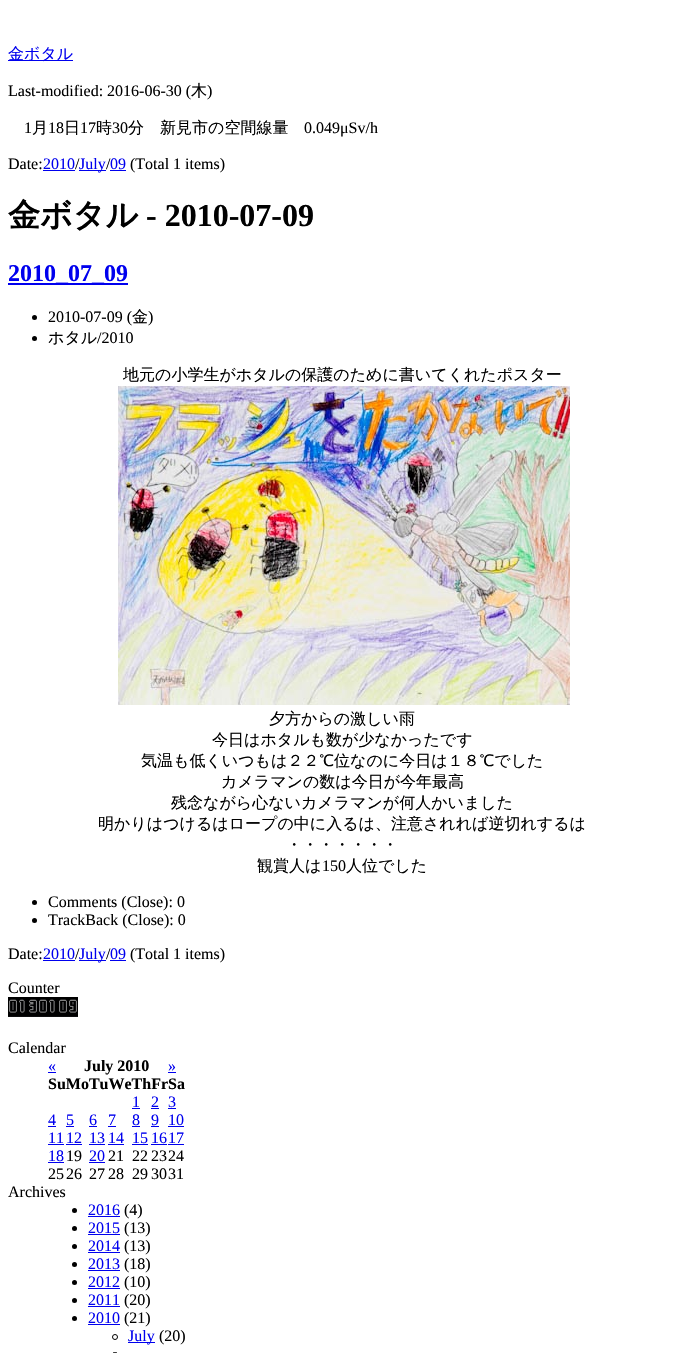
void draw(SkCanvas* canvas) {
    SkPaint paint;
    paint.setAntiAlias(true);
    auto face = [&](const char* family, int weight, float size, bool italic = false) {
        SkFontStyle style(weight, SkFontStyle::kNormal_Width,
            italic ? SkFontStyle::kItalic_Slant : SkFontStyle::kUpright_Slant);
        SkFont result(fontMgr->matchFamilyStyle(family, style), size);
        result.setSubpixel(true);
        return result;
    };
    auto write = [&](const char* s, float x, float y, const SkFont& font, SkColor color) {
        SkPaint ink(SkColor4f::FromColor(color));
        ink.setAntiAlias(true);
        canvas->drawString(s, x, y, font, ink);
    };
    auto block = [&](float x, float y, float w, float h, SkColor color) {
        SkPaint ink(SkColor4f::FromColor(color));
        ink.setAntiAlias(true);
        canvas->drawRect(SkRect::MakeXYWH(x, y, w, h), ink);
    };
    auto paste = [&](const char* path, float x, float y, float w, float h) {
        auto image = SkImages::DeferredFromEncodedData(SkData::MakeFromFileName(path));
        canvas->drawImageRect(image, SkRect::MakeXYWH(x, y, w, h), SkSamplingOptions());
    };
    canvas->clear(SK_ColorWHITE);
    block(8, 60, 65, 1, SkColorSetRGB(0, 0, 238));
    auto kFont1 = face("WenQuanYi Zen Hei", 500, 16);
    write("金ボタル", 8, 59, kFont1, SkColorSetRGB(0, 0, 238));
    auto kFont2 = face("Liberation Serif", 400, 16);
    write("Last-modified: 2016-06-30 (", 8, 96, kFont2, SK_ColorBLACK);
    write("木", 191, 96, kFont1, SK_ColorBLACK);
    write(")", 207, 96, kFont2, SK_ColorBLACK);
    write("1", 24, 133, kFont2, SK_ColorBLACK);
    write("月", 32, 133, kFont1, SK_ColorBLACK);
    write("18", 48, 133, kFont2, SK_ColorBLACK);
    write("日", 64, 133, kFont1, SK_ColorBLACK);
    write("17", 80, 133, kFont2, SK_ColorBLACK);
    write("時", 96, 133, kFont1, SK_ColorBLACK);
    write("30", 112, 133, kFont2, SK_ColorBLACK);
    write("分　新見市の空間線量", 128, 133, kFont1, SK_ColorBLACK);
    write("0.049μSv/h", 304, 133, kFont2, SK_ColorBLACK);
    write("Date:", 8, 169, kFont2, SK_ColorBLACK);
    write("2010", 43, 169, kFont2, SkColorSetRGB(0, 0, 238));
    block(43, 170, 32, 1, SkColorSetRGB(0, 0, 238));
    write("/", 75, 169, kFont2, SK_ColorBLACK);
    block(79, 170, 27, 1, SkColorSetRGB(0, 0, 238));
    write("July", 79, 169, kFont2, SkColorSetRGB(0, 0, 238));
    write("/", 106, 169, kFont2, SK_ColorBLACK);
    write("09", 110, 169, kFont2, SkColorSetRGB(0, 0, 238));
    block(110, 170, 16, 1, SkColorSetRGB(0, 0, 238));
    write("(Total 1 items)", 130, 169, kFont2, SK_ColorBLACK);
    auto kFont3 = face("WenQuanYi Zen Hei", 700, 32);
    write("金ボタル", 8, 226, kFont3, SK_ColorBLACK);
    auto kFont4 = face("Liberation Serif", 700, 32);
    write("- 2010-07-09", 146, 226, kFont4, SK_ColorBLACK);
    block(8, 283, 120, 2, SkColorSetRGB(0, 0, 238));
    auto kFont5 = face("Liberation Serif", 700, 24);
    write("2010_07_09", 8, 281, kFont5, SkColorSetRGB(0, 0, 238));
    paint.setColor(SK_ColorBLACK);
    canvas->drawCircle(34.5f, 317.5f, 2.5f, paint);
    write("2010-07-09 (", 48, 322, kFont2, SK_ColorBLACK);
    write("金", 132, 322, kFont1, SK_ColorBLACK);
    write(")", 148, 322, kFont2, SK_ColorBLACK);
    canvas->drawCircle(34.5f, 338.5f, 2.5f, paint);
    write("ホタル", 48, 343, kFont1, SK_ColorBLACK);
    write("/2010", 97, 343, kFont2, SK_ColorBLACK);
    write("地元の小学生がホタルの保護のために書いてくれたポスター", 123, 380, kFont1, SK_ColorBLACK);
    paste("pic1.png", 118, 386, 452, 319);
    write("夕方からの激しい雨", 269, 724, kFont1, SK_ColorBLACK);
    write("今日はホタルも数が少なかったです", 212, 745, kFont1, SK_ColorBLACK);
    write("気温も低くいつもは２２℃位なのに今日は１８℃でした", 141, 766, kFont1, SK_ColorBLACK);
    write("カメラマンの数は今日が今年最高", 221, 787, kFont1, SK_ColorBLACK);
    write("残念ながら心ないカメラマンが何人かいました", 171, 808, kFont1, SK_ColorBLACK);
    write("明かりはつけるはロープの中に入るは、注意されれば逆切れするは", 98, 829, kFont1, SK_ColorBLACK);
    write("・・・・・・・", 286, 850, kFont1, SK_ColorBLACK);
    write("観賞人は", 257, 871, kFont1, SK_ColorBLACK);
    write("150", 322, 871, kFont2, SK_ColorBLACK);
    write("人位でした", 346, 871, kFont1, SK_ColorBLACK);
    canvas->drawCircle(34.5f, 902.5f, 2.5f, paint);
    write("Comments (Close): 0", 48, 907, kFont2, SK_ColorBLACK);
    canvas->drawCircle(34.5f, 920.5f, 2.5f, paint);
    write("TrackBack (Close): 0", 48, 925, kFont2, SK_ColorBLACK);
    write("Date:", 8, 959, kFont2, SK_ColorBLACK);
    write("2010", 43, 959, kFont2, SkColorSetRGB(0, 0, 238));
    block(43, 960, 32, 1, SkColorSetRGB(0, 0, 238));
    write("/", 75, 959, kFont2, SK_ColorBLACK);
    block(79, 960, 27, 1, SkColorSetRGB(0, 0, 238));
    write("July", 79, 959, kFont2, SkColorSetRGB(0, 0, 238));
    write("/", 106, 959, kFont2, SK_ColorBLACK);
    write("09", 110, 959, kFont2, SkColorSetRGB(0, 0, 238));
    block(110, 960, 16, 1, SkColorSetRGB(0, 0, 238));
    write("(Total 1 items)", 130, 959, kFont2, SK_ColorBLACK);
    write("Counter", 8, 993, kFont2, SK_ColorBLACK);
    paste("pic2.png", 8, 997, 70, 20);
    write("Calendar", 8, 1053, kFont2, SK_ColorBLACK);
    write("«", 48, 1071, kFont2, SkColorSetRGB(0, 0, 238));
    block(48, 1072, 8, 1, SkColorSetRGB(0, 0, 238));
    auto kFont6 = face("Liberation Serif", 700, 16);
    write("July 2010", 84, 1071, kFont6, SK_ColorBLACK);
    write("»", 168, 1071, kFont2, SkColorSetRGB(0, 0, 238));
    block(168, 1072, 8, 1, SkColorSetRGB(0, 0, 238));
    write("SuMoTuWeThFrSa", 48, 1089, kFont6, SK_ColorBLACK);
    write("1", 132, 1107, kFont2, SkColorSetRGB(0, 0, 238));
    block(132, 1108, 8, 1, SkColorSetRGB(0, 0, 238));
    write("2", 151, 1107, kFont2, SkColorSetRGB(0, 0, 238));
    block(151, 1108, 8, 1, SkColorSetRGB(0, 0, 238));
    write("3", 168, 1107, kFont2, SkColorSetRGB(0, 0, 238));
    block(168, 1108, 8, 1, SkColorSetRGB(0, 0, 238));
    write("4", 48, 1125, kFont2, SkColorSetRGB(0, 0, 238));
    block(48, 1126, 8, 1, SkColorSetRGB(0, 0, 238));
    write("5", 66, 1125, kFont2, SkColorSetRGB(0, 0, 238));
    block(66, 1126, 8, 1, SkColorSetRGB(0, 0, 238));
    write("6", 89, 1125, kFont2, SkColorSetRGB(0, 0, 238));
    block(89, 1126, 8, 1, SkColorSetRGB(0, 0, 238));
    write("7", 108, 1125, kFont2, SkColorSetRGB(0, 0, 238));
    block(108, 1126, 8, 1, SkColorSetRGB(0, 0, 238));
    write("8", 132, 1125, kFont2, SkColorSetRGB(0, 0, 238));
    block(132, 1126, 8, 1, SkColorSetRGB(0, 0, 238));
    write("9", 151, 1125, kFont2, SkColorSetRGB(0, 0, 238));
    block(151, 1126, 8, 1, SkColorSetRGB(0, 0, 238));
    write("10", 168, 1125, kFont2, SkColorSetRGB(0, 0, 238));
    block(168, 1126, 16, 1, SkColorSetRGB(0, 0, 238));
    write("11", 48, 1143, kFont2, SkColorSetRGB(0, 0, 238));
    block(48, 1144, 16, 1, SkColorSetRGB(0, 0, 238));
    write("12", 66, 1143, kFont2, SkColorSetRGB(0, 0, 238));
    block(66, 1144, 16, 1, SkColorSetRGB(0, 0, 238));
    write("13", 89, 1143, kFont2, SkColorSetRGB(0, 0, 238));
    block(89, 1144, 16, 1, SkColorSetRGB(0, 0, 238));
    write("14", 108, 1143, kFont2, SkColorSetRGB(0, 0, 238));
    block(108, 1144, 16, 1, SkColorSetRGB(0, 0, 238));
    write("15", 132, 1143, kFont2, SkColorSetRGB(0, 0, 238));
    block(132, 1144, 16, 1, SkColorSetRGB(0, 0, 238));
    write("16", 151, 1143, kFont2, SkColorSetRGB(0, 0, 238));
    block(151, 1144, 16, 1, SkColorSetRGB(0, 0, 238));
    write("17", 168, 1143, kFont2, SkColorSetRGB(0, 0, 238));
    block(168, 1144, 16, 1, SkColorSetRGB(0, 0, 238));
    write("18", 48, 1161, kFont2, SkColorSetRGB(0, 0, 238));
    block(48, 1162, 16, 1, SkColorSetRGB(0, 0, 238));
    write("19", 66, 1161, kFont2, SK_ColorBLACK);
    write("20", 89, 1161, kFont2, SkColorSetRGB(0, 0, 238));
    block(89, 1162, 16, 1, SkColorSetRGB(0, 0, 238));
    write("21", 108, 1161, kFont2, SK_ColorBLACK);
    write("22", 132, 1161, kFont2, SK_ColorBLACK);
    write("23", 151, 1161, kFont2, SK_ColorBLACK);
    write("24", 168, 1161, kFont2, SK_ColorBLACK);
    write("25", 48, 1179, kFont2, SK_ColorBLACK);
    write("26", 66, 1179, kFont2, SK_ColorBLACK);
    write("27", 89, 1179, kFont2, SK_ColorBLACK);
    write("28", 108, 1179, kFont2, SK_ColorBLACK);
    write("29", 132, 1179, kFont2, SK_ColorBLACK);
    write("30", 151, 1179, kFont2, SK_ColorBLACK);
    write("31", 168, 1179, kFont2, SK_ColorBLACK);
    write("Archives", 8, 1197, kFont2, SK_ColorBLACK);
    canvas->drawCircle(74.5f, 1210.5f, 2.5f, paint);
    write("2016", 88, 1215, kFont2, SkColorSetRGB(0, 0, 238));
    block(88, 1216, 32, 1, SkColorSetRGB(0, 0, 238));
    write("(4)", 124, 1215, kFont2, SK_ColorBLACK);
    canvas->drawCircle(74.5f, 1228.5f, 2.5f, paint);
    write("2015", 88, 1233, kFont2, SkColorSetRGB(0, 0, 238));
    block(88, 1234, 32, 1, SkColorSetRGB(0, 0, 238));
    write("(13)", 124, 1233, kFont2, SK_ColorBLACK);
    canvas->drawCircle(74.5f, 1246.5f, 2.5f, paint);
    write("2014", 88, 1251, kFont2, SkColorSetRGB(0, 0, 238));
    block(88, 1252, 32, 1, SkColorSetRGB(0, 0, 238));
    write("(13)", 124, 1251, kFont2, SK_ColorBLACK);
    canvas->drawCircle(74.5f, 1264.5f, 2.5f, paint);
    write("2013", 88, 1269, kFont2, SkColorSetRGB(0, 0, 238));
    block(88, 1270, 32, 1, SkColorSetRGB(0, 0, 238));
    write("(18)", 124, 1269, kFont2, SK_ColorBLACK);
    canvas->drawCircle(74.5f, 1282.5f, 2.5f, paint);
    write("2012", 88, 1287, kFont2, SkColorSetRGB(0, 0, 238));
    block(88, 1288, 32, 1, SkColorSetRGB(0, 0, 238));
    write("(10)", 124, 1287, kFont2, SK_ColorBLACK);
    canvas->drawCircle(74.5f, 1300.5f, 2.5f, paint);
    write("2011", 88, 1305, kFont2, SkColorSetRGB(0, 0, 238));
    block(88, 1306, 32, 1, SkColorSetRGB(0, 0, 238));
    write("(20)", 124, 1305, kFont2, SK_ColorBLACK);
    canvas->drawCircle(74.5f, 1318.5f, 2.5f, paint);
    write("2010", 88, 1323, kFont2, SkColorSetRGB(0, 0, 238));
    block(88, 1324, 32, 1, SkColorSetRGB(0, 0, 238));
    write("(21)", 124, 1323, kFont2, SK_ColorBLACK);
    paint.setStyle(SkPaint::kStroke_Style);
    paint.setStrokeWidth(1);
    canvas->drawCircle(115, 1337, 2.5f, paint);
    block(128, 1342, 27, 1, SkColorSetRGB(0, 0, 238));
    write("July", 128, 1341, kFont2, SkColorSetRGB(0, 0, 238));
    write("(20)", 159, 1341, kFont2, SK_ColorBLACK);
    canvas->drawRoundRect(SkRect::MakeXYWH(112.5f, 1352.5f, 5, 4), 2.5f, 2.5f, paint);
}
